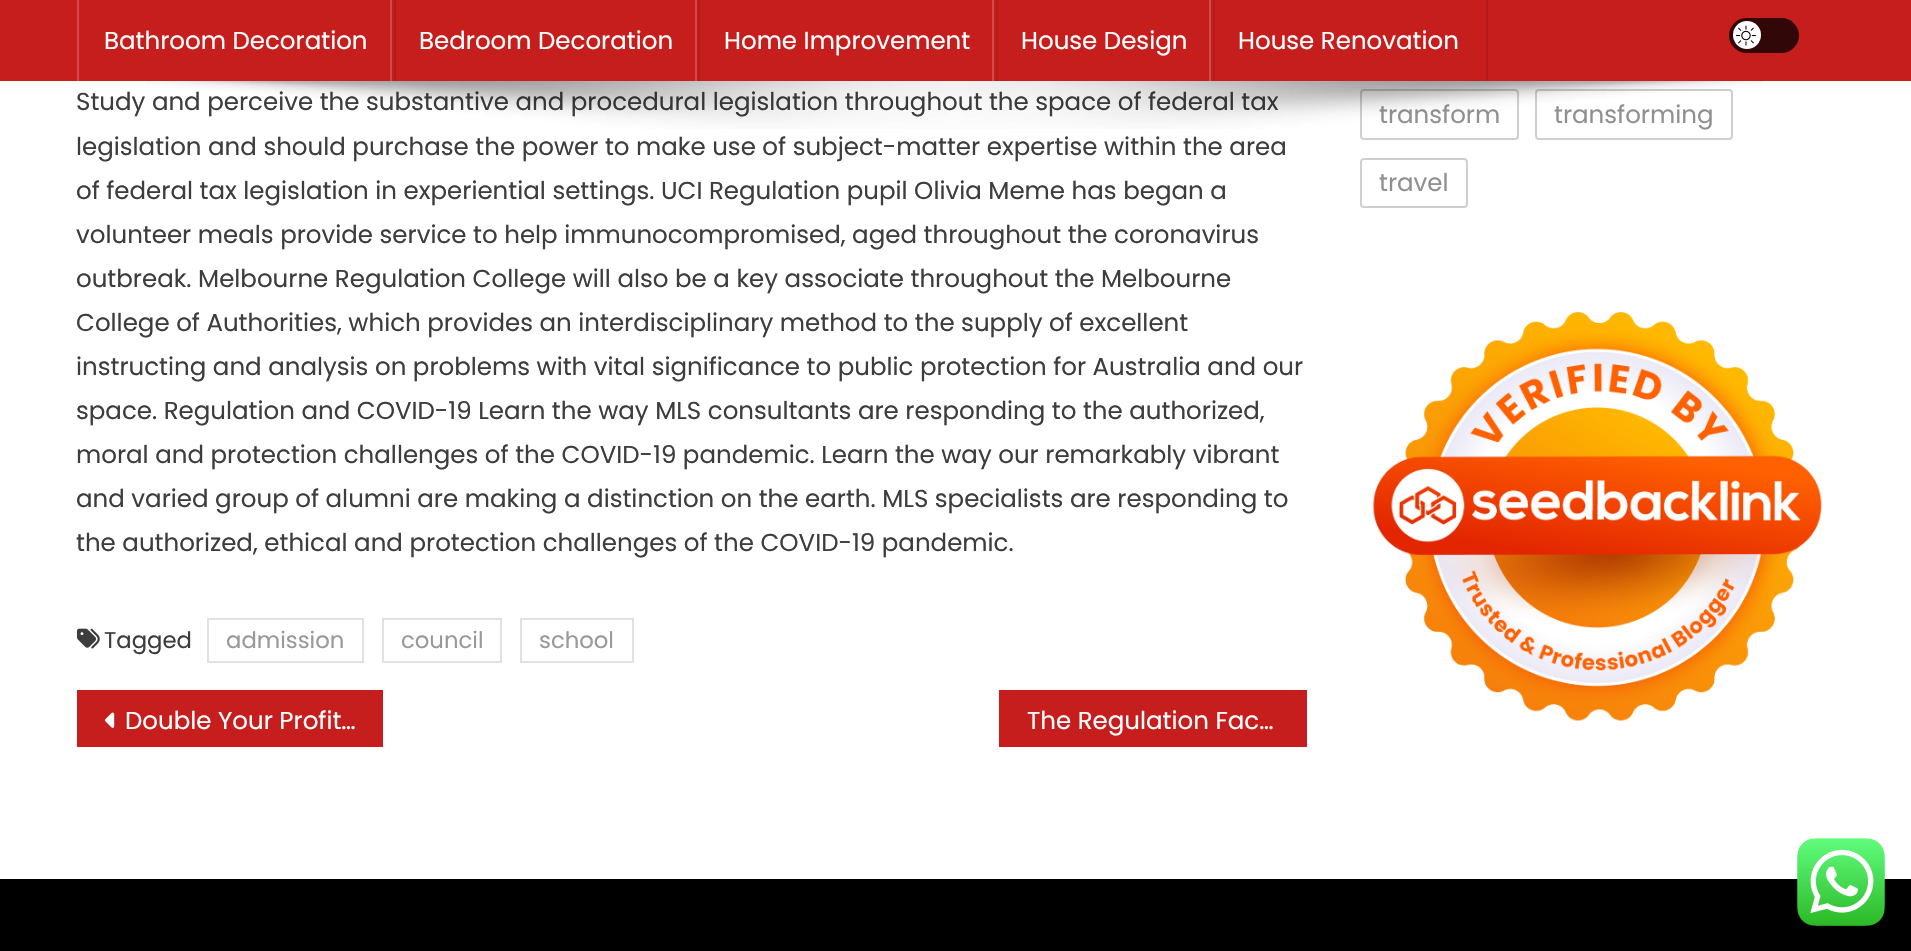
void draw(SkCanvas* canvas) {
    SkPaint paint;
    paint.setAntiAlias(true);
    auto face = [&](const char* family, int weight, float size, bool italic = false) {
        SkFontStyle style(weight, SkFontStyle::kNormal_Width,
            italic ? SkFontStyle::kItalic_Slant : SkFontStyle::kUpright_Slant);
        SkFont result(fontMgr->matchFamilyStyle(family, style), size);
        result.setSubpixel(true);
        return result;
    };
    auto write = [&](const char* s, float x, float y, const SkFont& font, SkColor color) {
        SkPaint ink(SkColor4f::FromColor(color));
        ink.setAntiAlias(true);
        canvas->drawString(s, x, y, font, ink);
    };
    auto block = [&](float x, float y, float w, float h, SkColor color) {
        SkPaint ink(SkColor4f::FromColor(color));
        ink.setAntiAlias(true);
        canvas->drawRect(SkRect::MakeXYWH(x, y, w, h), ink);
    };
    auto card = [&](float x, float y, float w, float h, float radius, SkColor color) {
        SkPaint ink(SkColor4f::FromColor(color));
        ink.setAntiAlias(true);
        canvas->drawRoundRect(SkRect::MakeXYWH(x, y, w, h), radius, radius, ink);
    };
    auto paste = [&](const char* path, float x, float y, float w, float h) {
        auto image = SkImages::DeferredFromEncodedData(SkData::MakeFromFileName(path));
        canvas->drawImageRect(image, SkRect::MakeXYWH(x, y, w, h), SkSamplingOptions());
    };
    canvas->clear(SK_ColorWHITE);
    block(0, 0, 1911, 81, SkColorSetRGB(198, 29, 29));
    block(394, 0, 2, 81, SkColorSetRGB(182, 27, 27));
    block(77, 0, 2, 81, SkColorSetRGB(209, 74, 74));
    auto kFont1 = face("Poppins", 400, 24.5f);
    write("Bathroom Decoration", 104, 49, kFont1, SK_ColorWHITE);
    block(698, 0, 2, 81, SkColorSetRGB(182, 27, 27));
    block(390, 0, 2, 81, SkColorSetRGB(209, 74, 74));
    write("Bedroom Decoration", 419, 49, kFont1, SK_ColorWHITE);
    block(996, 0, 2, 81, SkColorSetRGB(182, 27, 27));
    block(695, 0, 2, 81, SkColorSetRGB(209, 74, 74));
    write("Home Improvement", 724, 49, kFont1, SK_ColorWHITE);
    block(1213, 0, 2, 81, SkColorSetRGB(182, 27, 27));
    block(992, 0, 2, 81, SkColorSetRGB(209, 74, 74));
    write("House Design", 1021, 49, kFont1, SK_ColorWHITE);
    block(1486, 0, 2, 81, SkColorSetRGB(182, 27, 27));
    block(1209, 0, 2, 81, SkColorSetRGB(209, 74, 74));
    write("House Renovation", 1238, 49, kFont1, SK_ColorWHITE);
    card(1729, 18, 70, 35, 17.5f, SkColorSetRGB(50, 7, 7));
    paint.setColor(SK_ColorWHITE);
    canvas->drawCircle(1747, 35, 14, paint);
    paste("pic1.png", 1736, 25, 20, 21);
    write("Study and perceive the substantive and procedural legislation throughout the space of federal tax", 76, 110, kFont1, SkColorSetRGB(61, 61, 61));
    paint.setStyle(SkPaint::kStroke_Style);
    paint.setStrokeWidth(2);
    paint.setColor(SkColorSetRGB(207, 207, 207));
    canvas->drawRoundRect(SkRect::MakeXYWH(1361, 90, 157, 49), 3, 3, paint);
    write("transform", 1379, 123, kFont1, SkColorSetRGB(144, 144, 144));
    canvas->drawRoundRect(SkRect::MakeXYWH(1536, 90, 196, 49), 3, 3, paint);
    write("transforming", 1554, 123, kFont1, SkColorSetRGB(144, 144, 144));
    paste("pic2.png", 146, 81, 1617, 48);
    write("legislation and should purchase the power to make use of subject-matter expertise within the area", 76, 155, kFont1, SkColorSetRGB(61, 61, 61));
    write("of federal tax legislation in experiential settings. UCI Regulation pupil Olivia Meme has began a", 76, 199, kFont1, SkColorSetRGB(61, 61, 61));
    write("volunteer meals provide service to help immunocompromised, aged throughout the coronavirus", 76, 243, kFont1, SkColorSetRGB(61, 61, 61));
    write("outbreak. Melbourne Regulation College will also be a key associate throughout the Melbourne", 76, 287, kFont1, SkColorSetRGB(61, 61, 61));
    write("College of Authorities, which provides an interdisciplinary method to the supply of excellent", 76, 331, kFont1, SkColorSetRGB(61, 61, 61));
    write("instructing and analysis on problems with vital significance to public protection for Australia and our", 76, 375, kFont1, SkColorSetRGB(61, 61, 61));
    write("space. Regulation and COVID-19 Learn the way MLS consultants are responding to the authorized,", 76, 419, kFont1, SkColorSetRGB(61, 61, 61));
    write("moral and protection challenges of the COVID-19 pandemic. Learn the way our remarkably vibrant", 76, 463, kFont1, SkColorSetRGB(61, 61, 61));
    write("and varied group of alumni are making a distinction on the earth. MLS specialists are responding to", 76, 507, kFont1, SkColorSetRGB(61, 61, 61));
    write("the authorized, ethical and protection challenges of the COVID-19 pandemic.", 76, 551, kFont1, SkColorSetRGB(61, 61, 61));
    paste("pic3.png", 77, 628, 23, 21);
    auto kFont2 = face("Poppins", 400, 22.75f);
    write("Tagged", 104, 648, kFont2, SkColorSetRGB(61, 61, 61));
    paint.setColor(SkColorSetRGB(225, 225, 225));
    canvas->drawRect(SkRect::MakeXYWH(208, 619, 155, 43), paint);
    write("admission", 226, 648, kFont2, SkColorSetRGB(153, 153, 153));
    canvas->drawRect(SkRect::MakeXYWH(383, 619, 118, 43), paint);
    write("council", 401, 648, kFont2, SkColorSetRGB(153, 153, 153));
    canvas->drawRect(SkRect::MakeXYWH(521, 619, 112, 43), paint);
    write("school", 539, 648, kFont2, SkColorSetRGB(153, 153, 153));
    block(77, 690, 306, 57, SkColorSetRGB(198, 29, 29));
    paste("pic4.png", 105, 712, 10, 16);
    write("Double Your Profit…", 125, 729, kFont1, SK_ColorWHITE);
    block(999, 690, 308, 57, SkColorSetRGB(198, 29, 29));
    write("The Regulation Fac…", 1027, 729, kFont1, SK_ColorWHITE);
    paint.setColor(SkColorSetRGB(207, 207, 207));
    canvas->drawRoundRect(SkRect::MakeXYWH(1361, 159, 106, 48), 3, 3, paint);
    write("travel", 1379, 191, kFont1, SkColorSetRGB(144, 144, 144));
    paste("pic5.png", 1373, 312, 449, 409);
    block(0, 879, 1911, 72, SK_ColorBLACK);
    paste("pic6.png", 1797, 838, 88, 88);
}
